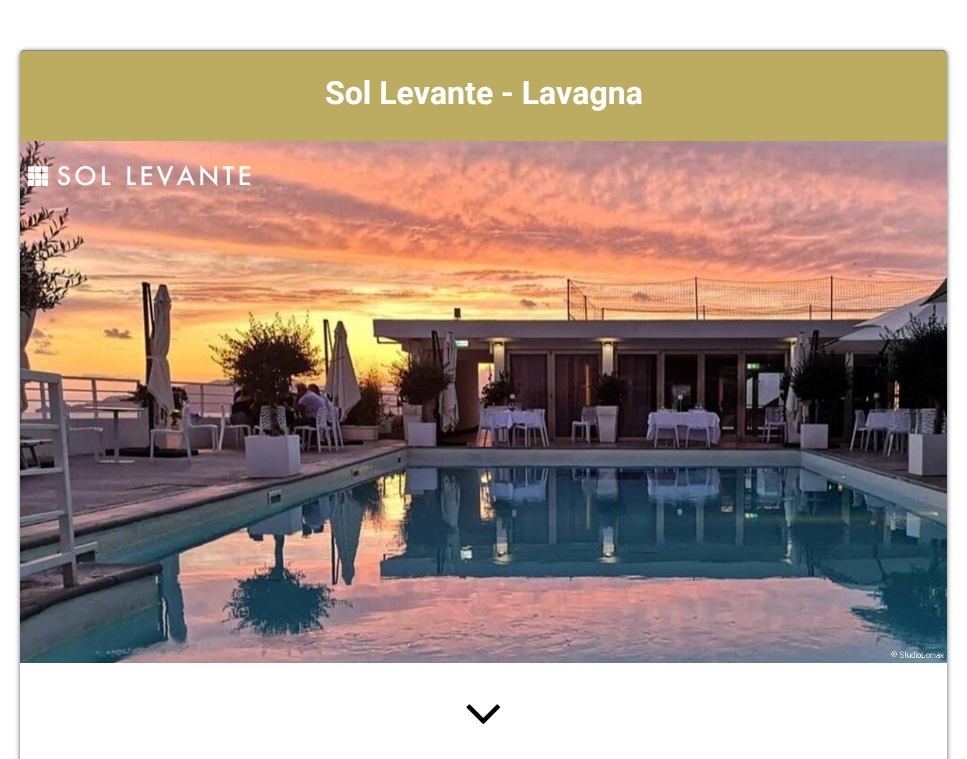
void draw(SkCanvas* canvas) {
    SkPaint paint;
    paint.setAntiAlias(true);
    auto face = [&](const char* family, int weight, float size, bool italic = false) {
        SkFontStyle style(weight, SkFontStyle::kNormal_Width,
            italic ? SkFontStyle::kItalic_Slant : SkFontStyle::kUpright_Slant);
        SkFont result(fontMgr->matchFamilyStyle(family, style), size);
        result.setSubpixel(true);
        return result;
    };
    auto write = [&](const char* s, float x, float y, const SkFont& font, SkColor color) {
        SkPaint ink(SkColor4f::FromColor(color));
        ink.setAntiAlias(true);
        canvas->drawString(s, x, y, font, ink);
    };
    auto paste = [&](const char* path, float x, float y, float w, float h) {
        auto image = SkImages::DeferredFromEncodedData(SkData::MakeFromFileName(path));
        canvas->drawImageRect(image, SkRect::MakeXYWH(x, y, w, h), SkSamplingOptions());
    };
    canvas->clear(SK_ColorWHITE);
    paint.setColor(SkColorSetARGB(166, 0, 0, 0));
    paint.setMaskFilter(SkMaskFilter::MakeBlur(kNormal_SkBlurStyle, 2.5f));
    canvas->drawRoundRect(SkRect::MakeXYWH(20, 51, 927, 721), 5, 5, paint);
    paint.setMaskFilter(nullptr);
    paint.setColor(SK_ColorWHITE);
    canvas->drawPath(SkPathBuilder().moveTo(25, 50).lineTo(942, 50).cubicTo(945, 50, 947, 52, 947, 55).lineTo(947, 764).lineTo(20, 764).lineTo(20, 55).cubicTo(20, 52, 22, 50, 25, 50).close().detach(), paint);
    paint.setColor(SkColorSetRGB(187, 172, 98));
    canvas->drawPath(SkPathBuilder().moveTo(25, 50).lineTo(942, 50).cubicTo(945, 50, 947, 52, 947, 55).lineTo(947, 141).lineTo(20, 141).lineTo(20, 55).cubicTo(20, 52, 22, 50, 25, 50).close().detach(), paint);
    paint.setColor(SkColorSetRGB(126, 134, 137));
    canvas->drawPath(SkPathBuilder().moveTo(25, 50).cubicTo(22, 50, 20, 52, 20, 55).cubicTo(20, 53, 22, 51, 25, 51).lineTo(942, 51).cubicTo(945, 51, 947, 53, 947, 55).cubicTo(947, 52, 945, 50, 942, 50).close().detach(), paint);
    auto kFont1 = face("Roboto", 700, 32);
    write("Sol Levante - Lavagna", 325, 104, kFont1, SK_ColorWHITE);
    paste("pic1.png", 20, 141, 927, 522);
    paste("pic2.png", 466, 704, 34, 20);
}
